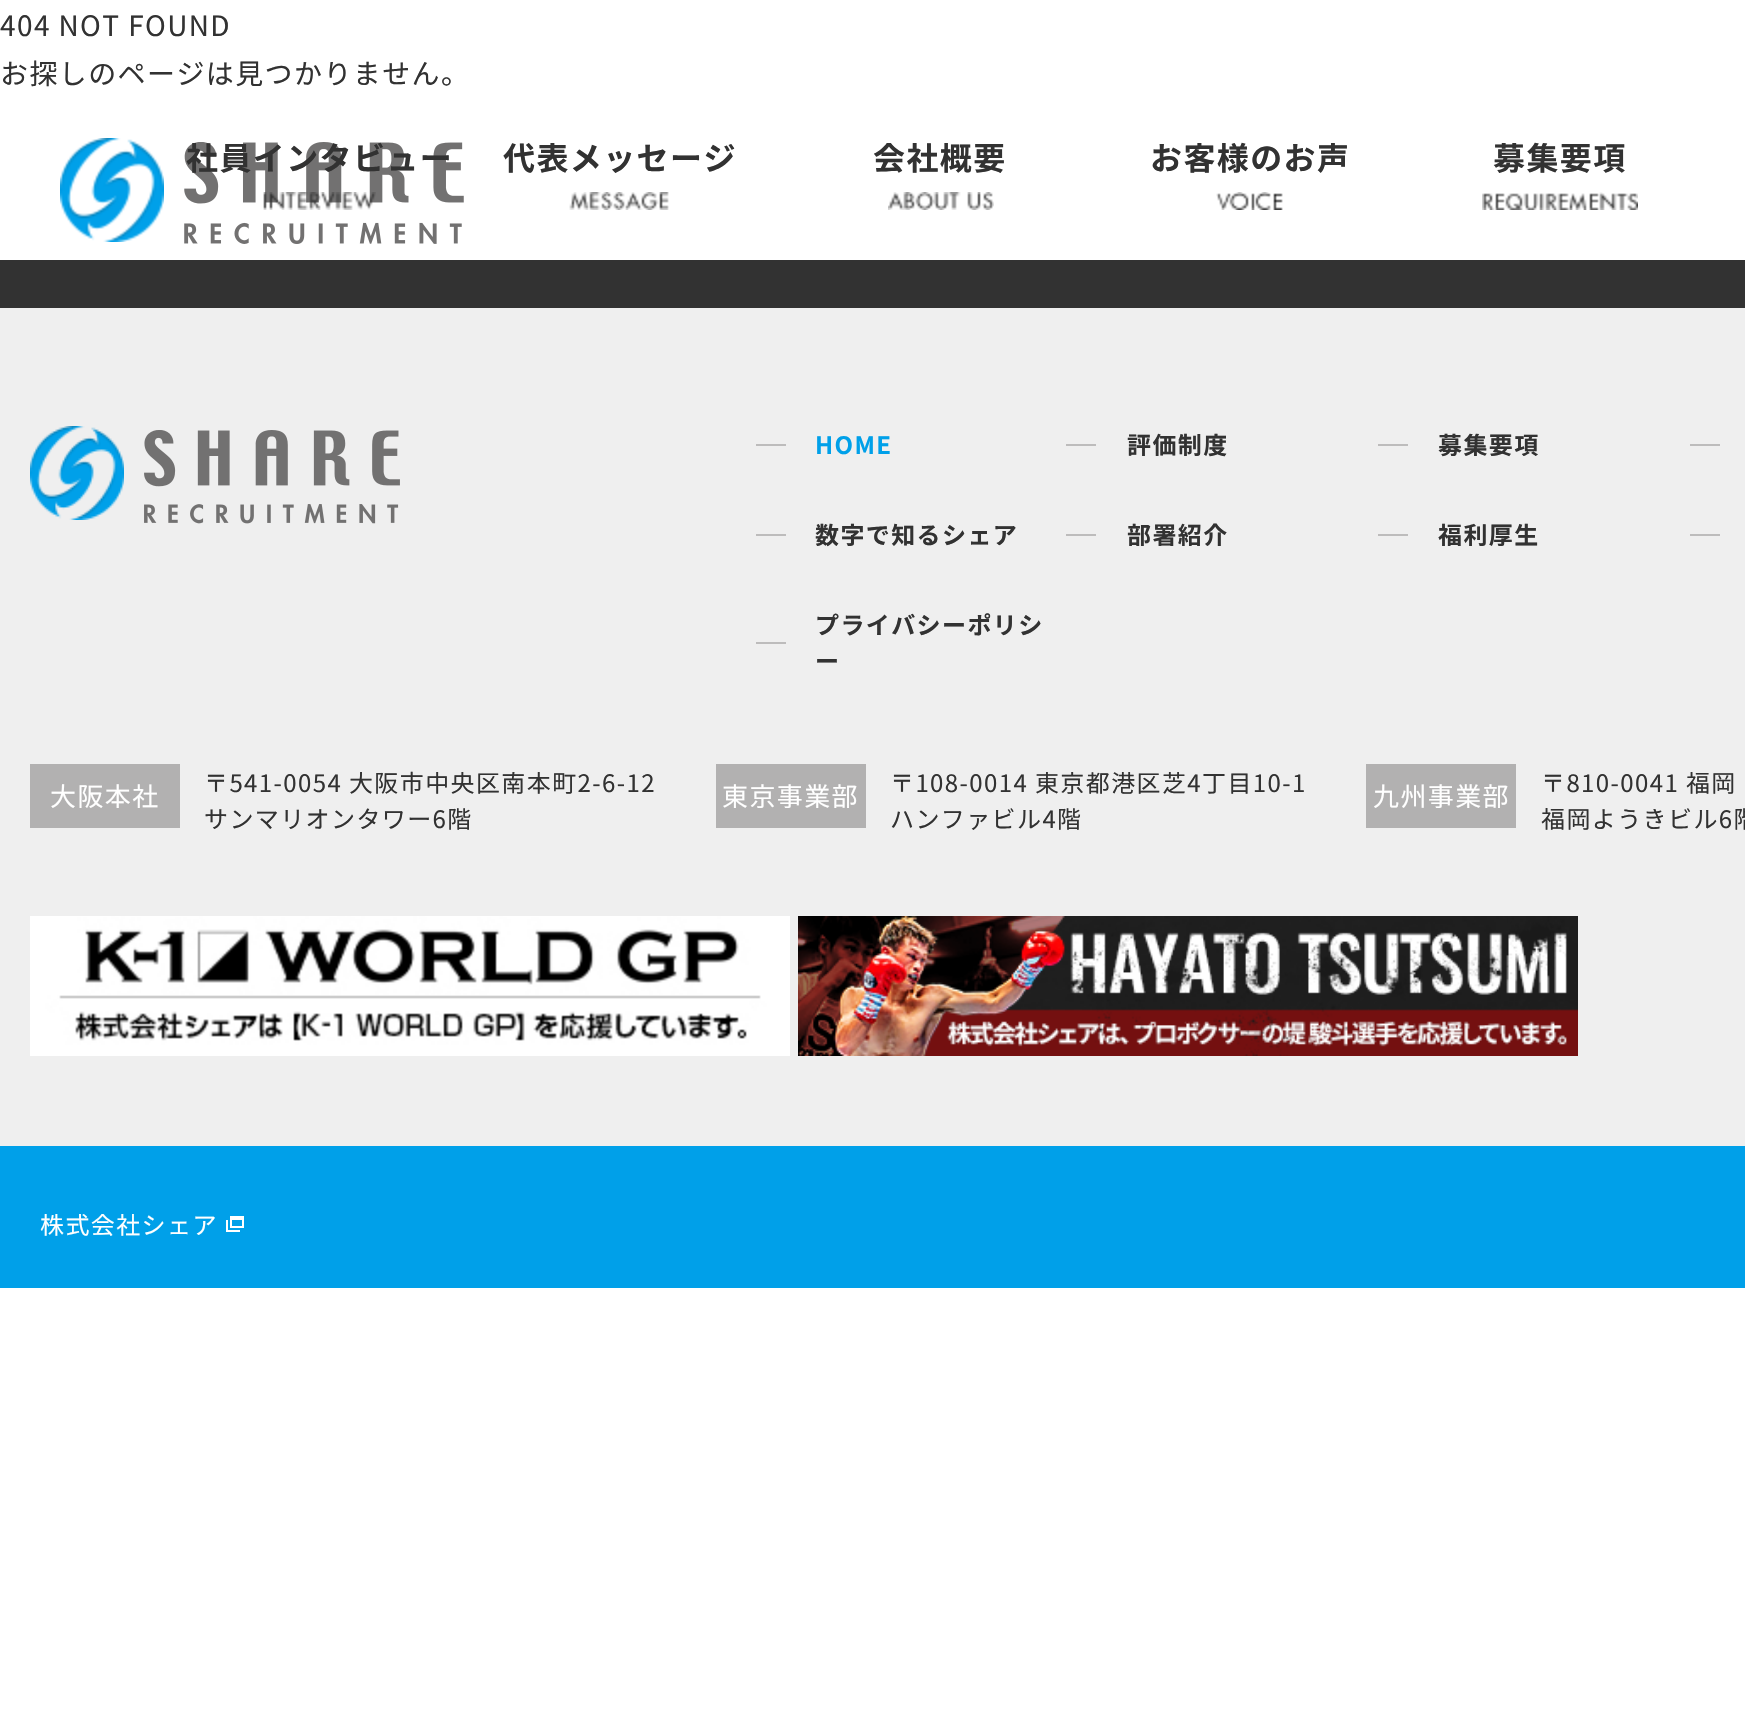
void draw(SkCanvas* canvas) {
    SkPaint paint;
    paint.setAntiAlias(true);
    auto face = [&](const char* family, int weight, float size, bool italic = false) {
        SkFontStyle style(weight, SkFontStyle::kNormal_Width,
            italic ? SkFontStyle::kItalic_Slant : SkFontStyle::kUpright_Slant);
        SkFont result(fontMgr->matchFamilyStyle(family, style), size);
        result.setSubpixel(true);
        return result;
    };
    auto writeSpaced = [&](const char* s, float x, float y, const SkFont& font, const SkPaint& ink, float letter, float word) {
        std::vector<SkGlyphID> glyphs(font.countText(s, strlen(s), SkTextEncoding::kUTF8));
        std::vector<float> xs(glyphs.size());
        font.textToGlyphs(s, strlen(s), SkTextEncoding::kUTF8, glyphs);
        font.getXPos(glyphs, xs, x);
        float extra = 0;
        for (size_t i = 0; i < glyphs.size(); i++) {
            xs[i] += extra;
            extra += letter + word * (glyphs[i] == font.unicharToGlyph(' '));
        }
        canvas->drawTextBlob(SkTextBlob::MakeFromPosHGlyphs(glyphs, xs, y, font), 0, 0, ink);
    };
    auto block = [&](float x, float y, float w, float h, SkColor color) {
        SkPaint ink(SkColor4f::FromColor(color));
        ink.setAntiAlias(true);
        canvas->drawRect(SkRect::MakeXYWH(x, y, w, h), ink);
    };
    auto paste = [&](const char* path, float x, float y, float w, float h) {
        auto image = SkImages::DeferredFromEncodedData(SkData::MakeFromFileName(path));
        canvas->drawImageRect(image, SkRect::MakeXYWH(x, y, w, h), SkSamplingOptions());
    };
    canvas->clear(SK_ColorWHITE);
    auto kFont1 = face("Noto Sans JP", 400, 28);
    paint.setColor(SkColorSetRGB(50, 50, 50));
    writeSpaced("404 NOT FOUND", 0, 36, kFont1, paint, 1.4f, 0);
    writeSpaced("お探しのページは見つかりません。", 0, 84, kFont1, paint, 1.4f, 0);
    paste("pic1.png", 60, 138, 104, 104);
    paste("pic2.png", 184, 142, 280, 102);
    auto kFont2 = face("Noto Sans JP", 700, 32);
    writeSpaced("社員インタビュー", 186, 170, kFont2, paint, 1.4f, 0);
    paste("pic3.png", 263, 192, 113, 18);
    writeSpaced("代表メッセージ", 503, 170, kFont2, paint, 1.4f, 0);
    paste("pic4.png", 569, 192, 100, 18);
    writeSpaced("会社概要", 873, 170, kFont2, paint, 1.4f, 0);
    paste("pic5.png", 888, 192, 106, 18);
    writeSpaced("お客様のお声", 1150, 170, kFont2, paint, 1.4f, 0);
    paste("pic6.png", 1216, 192, 67, 18);
    writeSpaced("募集要項", 1493, 170, kFont2, paint, 1.4f, 0);
    paste("pic7.png", 1482, 192, 156, 18);
    block(0, 308, 1745, 838, SkColorSetRGB(239, 239, 239));
    block(0, 260, 1745, 48, SkColorSetRGB(50, 50, 50));
    paste("pic8.png", 30, 426, 94, 94);
    paste("pic9.png", 144, 430, 256, 94);
    block(756, 444, 30, 2, SkColorSetRGB(189, 188, 188));
    auto kFont3 = face("Noto Sans JP", 700, 24);
    paint.setColor(SkColorSetRGB(0, 160, 233));
    writeSpaced("HOME", 815, 454, kFont3, paint, 1.4f, 0);
    block(1066, 444, 30, 2, SkColorSetRGB(189, 188, 188));
    paint.setColor(SkColorSetRGB(50, 50, 50));
    writeSpaced("評価制度", 1127, 454, kFont3, paint, 1.4f, 0);
    block(1378, 444, 30, 2, SkColorSetRGB(189, 188, 188));
    writeSpaced("募集要項", 1438, 454, kFont3, paint, 1.4f, 0);
    block(1690, 444, 30, 2, SkColorSetRGB(189, 188, 188));
    block(756, 534, 30, 2, SkColorSetRGB(189, 188, 188));
    writeSpaced("数字で知るシェア", 815, 544, kFont3, paint, 1.4f, 0);
    block(1066, 534, 30, 2, SkColorSetRGB(189, 188, 188));
    writeSpaced("部署紹介", 1127, 544, kFont3, paint, 1.4f, 0);
    block(1378, 534, 30, 2, SkColorSetRGB(189, 188, 188));
    writeSpaced("福利厚生", 1438, 544, kFont3, paint, 1.4f, 0);
    block(1690, 534, 30, 2, SkColorSetRGB(189, 188, 188));
    writeSpaced("プライバシーポリシ", 815, 634, kFont3, paint, 1.4f, 0);
    block(756, 642, 30, 2, SkColorSetRGB(189, 188, 188));
    writeSpaced("ー", 815, 670, kFont3, paint, 1.4f, 0);
    block(30, 764, 150, 64, SkColorSetRGB(178, 177, 177));
    auto kFont4 = face("Noto Sans JP", 400, 26);
    paint.setColor(SK_ColorWHITE);
    writeSpaced("大阪本社", 50, 806, kFont4, paint, 1.4f, 0);
    auto kFont5 = face("Noto Sans JP", 400, 24);
    paint.setColor(SkColorSetRGB(50, 50, 50));
    writeSpaced("〒541-0054 大阪市中央区南本町2-6-12", 204, 792, kFont5, paint, 1.4f, 0);
    writeSpaced("サンマリオンタワー6階", 204, 828, kFont5, paint, 1.4f, 0);
    block(716, 764, 150, 64, SkColorSetRGB(178, 177, 177));
    paint.setColor(SK_ColorWHITE);
    writeSpaced("東京事業部", 722, 806, kFont4, paint, 1.4f, 0);
    paint.setColor(SkColorSetRGB(50, 50, 50));
    writeSpaced("〒108-0014 東京都港区芝4丁目10-1", 890, 792, kFont5, paint, 1.4f, 0);
    writeSpaced("ハンファビル4階", 890, 828, kFont5, paint, 1.4f, 0);
    block(1366, 764, 150, 64, SkColorSetRGB(178, 177, 177));
    paint.setColor(SK_ColorWHITE);
    writeSpaced("九州事業部", 1373, 806, kFont4, paint, 1.4f, 0);
    paint.setColor(SkColorSetRGB(50, 50, 50));
    writeSpaced("〒810-0041 福岡", 1541, 792, kFont5, paint, 1.4f, 0);
    writeSpaced("福岡ようきビル6階", 1541, 828, kFont5, paint, 1.4f, 0);
    paste("pic10.png", 30, 916, 760, 140);
    paste("pic11.png", 798, 916, 780, 140);
    block(0, 1146, 1745, 142, SkColorSetRGB(0, 160, 233));
    paint.setColor(SK_ColorWHITE);
    writeSpaced("株式会社シェア", 40, 1234, kFont5, paint, 1.4f, 0);
    paste("pic12.png", 226, 1216, 18, 16);
}
